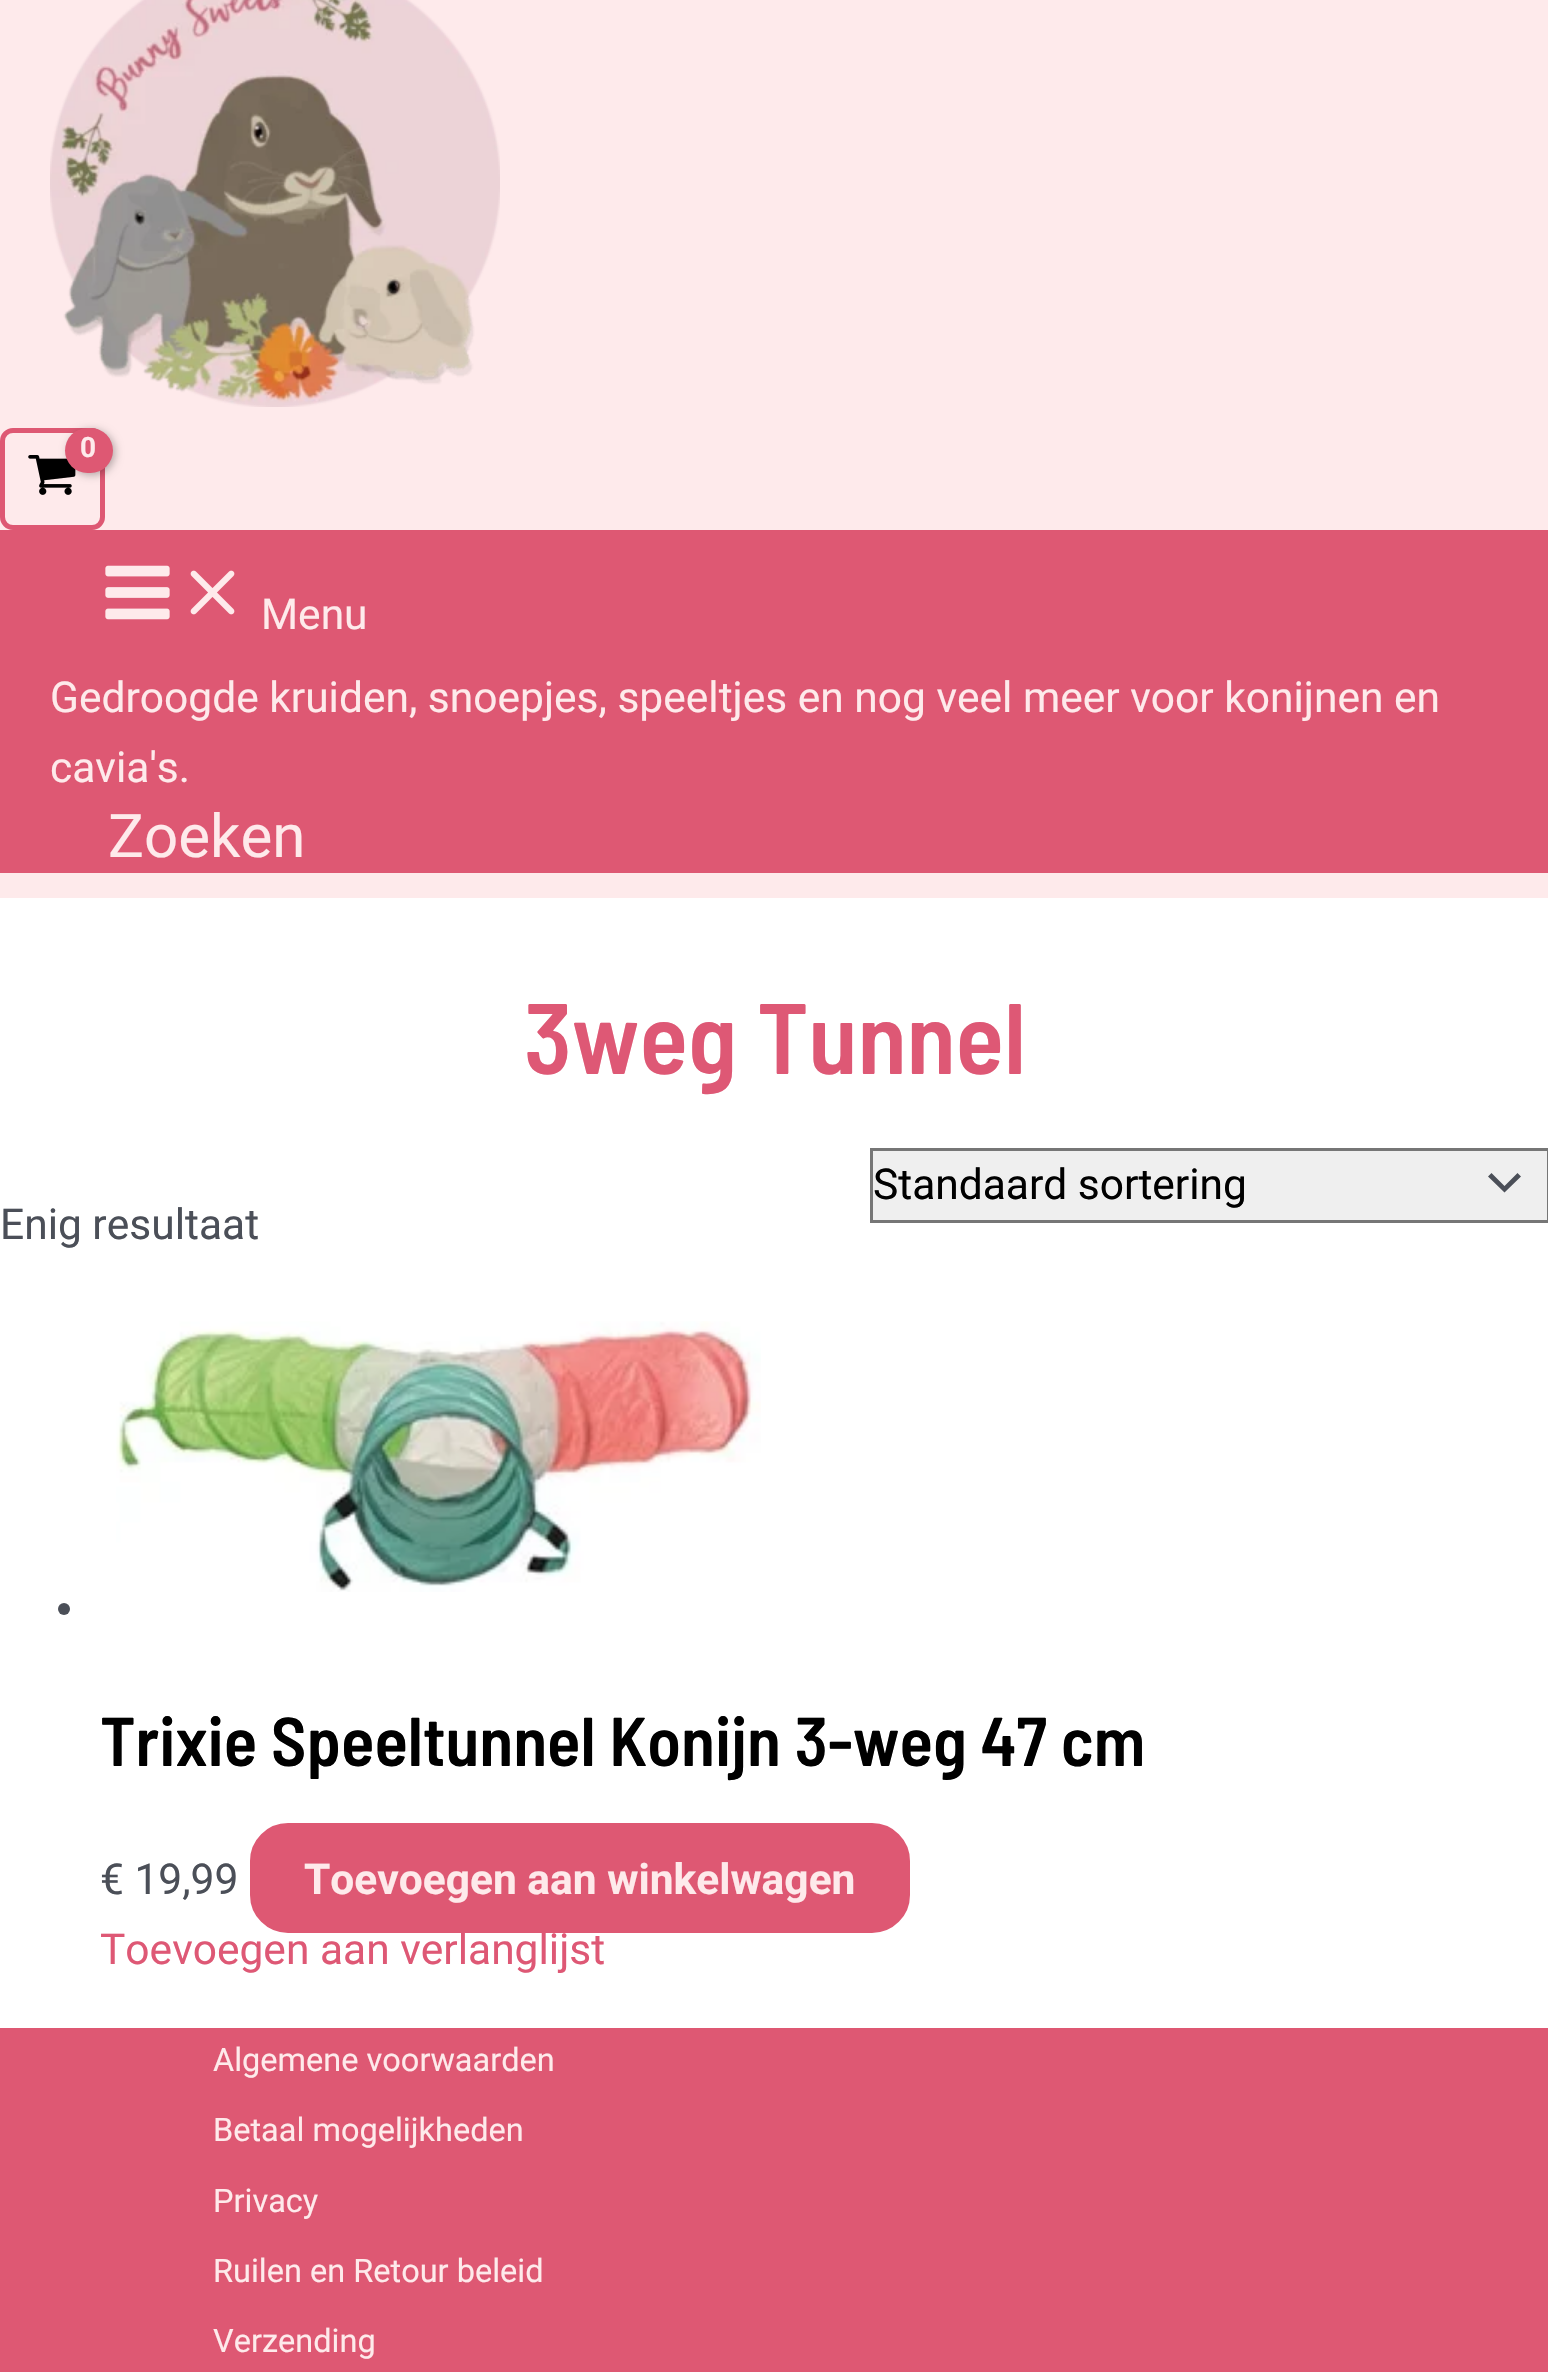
void draw(SkCanvas* canvas) {
    SkPaint paint;
    paint.setAntiAlias(true);
    auto face = [&](const char* family, int weight, float size, bool italic = false) {
        SkFontStyle style(weight, SkFontStyle::kNormal_Width,
            italic ? SkFontStyle::kItalic_Slant : SkFontStyle::kUpright_Slant);
        SkFont result(fontMgr->matchFamilyStyle(family, style), size);
        result.setSubpixel(true);
        return result;
    };
    auto write = [&](const char* s, float x, float y, const SkFont& font, SkColor color) {
        SkPaint ink(SkColor4f::FromColor(color));
        ink.setAntiAlias(true);
        canvas->drawString(s, x, y, font, ink);
    };
    auto writeSpaced = [&](const char* s, float x, float y, const SkFont& font, const SkPaint& ink, float letter, float word) {
        std::vector<SkGlyphID> glyphs(font.countText(s, strlen(s), SkTextEncoding::kUTF8));
        std::vector<float> xs(glyphs.size());
        font.textToGlyphs(s, strlen(s), SkTextEncoding::kUTF8, glyphs);
        font.getXPos(glyphs, xs, x);
        float extra = 0;
        for (size_t i = 0; i < glyphs.size(); i++) {
            xs[i] += extra;
            extra += letter + word * (glyphs[i] == font.unicharToGlyph(' '));
        }
        canvas->drawTextBlob(SkTextBlob::MakeFromPosHGlyphs(glyphs, xs, y, font), 0, 0, ink);
    };
    auto block = [&](float x, float y, float w, float h, SkColor color) {
        SkPaint ink(SkColor4f::FromColor(color));
        ink.setAntiAlias(true);
        canvas->drawRect(SkRect::MakeXYWH(x, y, w, h), ink);
    };
    auto card = [&](float x, float y, float w, float h, float radius, SkColor color) {
        SkPaint ink(SkColor4f::FromColor(color));
        ink.setAntiAlias(true);
        canvas->drawRoundRect(SkRect::MakeXYWH(x, y, w, h), radius, radius, ink);
    };
    auto paste = [&](const char* path, float x, float y, float w, float h) {
        auto image = SkImages::DeferredFromEncodedData(SkData::MakeFromFileName(path));
        canvas->drawImageRect(image, SkRect::MakeXYWH(x, y, w, h), SkSamplingOptions());
    };
    canvas->clear(SK_ColorWHITE);
    block(0, 0, 1548, 530, SkColorSetRGB(254, 234, 235));
    paste("pic1.png", 50, 0, 450, 407);
    paint.setStyle(SkPaint::kStroke_Style);
    paint.setStrokeWidth(5);
    paint.setColor(SkColorSetRGB(222, 88, 115));
    canvas->drawRoundRect(SkRect::MakeXYWH(2.5f, 430.5f, 100, 97), 10.5f, 10.5f, paint);
    paste("pic2.png", 28, 455, 48, 40);
    paint.setStyle(SkPaint::kFill_Style);
    paint.setColor(SkColorSetARGB(77, 0, 0, 0));
    paint.setMaskFilter(SkMaskFilter::MakeBlur(kNormal_SkBlurStyle, 4));
    canvas->drawRoundRect(SkRect::MakeXYWH(68, 430, 47, 45), 22.5f, 22.5f, paint);
    paint.setMaskFilter(nullptr);
    card(65, 428, 48, 45, 22.5f, SkColorSetRGB(222, 88, 115));
    auto kFont1 = face("Roboto", 700, 28);
    paint.setColor(SkColorSetRGB(254, 234, 235));
    writeSpaced("0", 80, 457, kFont1, paint, -1, 0);
    block(0, 530, 1548, 343, SkColorSetRGB(222, 88, 115));
    block(0, 873, 1548, 25, SkColorSetRGB(254, 234, 235));
    paste("pic3.png", 105, 565, 65, 55);
    paste("pic4.png", 190, 570, 45, 45);
    auto kFont2 = face("Roboto", 400, 42.5f);
    write("Menu", 261, 629, kFont2, SkColorSetRGB(254, 234, 235));
    write("Gedroogde kruiden, snoepjes, speeltjes en nog veel meer voor konijnen en", 50, 712, kFont2, SkColorSetRGB(254, 234, 235));
    write("cavia's.", 50, 782, kFont2, SkColorSetRGB(254, 234, 235));
    auto kFont3 = face("Roboto", 400, 60);
    write("Zoeken", 108, 857, kFont3, SkColorSetRGB(254, 234, 235));
    auto kFont4 = face("Barlow Semi Condensed", 600, 100);
    write("3weg Tunnel", 524, 1074, kFont4, SkColorSetRGB(222, 88, 117));
    block(873, 1151, 674, 69, SkColorSetRGB(239, 239, 239));
    paint.setColor(SkColorSetRGB(75, 79, 88));
    canvas->drawPath(SkPathBuilder().moveTo(1488, 1176.5f).lineTo(1504.5f, 1192.5f).lineTo(1521, 1176.5f).lineTo(1517.5f, 1173).lineTo(1504.5f, 1186).lineTo(1491.5f, 1173).close().detach(), paint);
    paint.setStyle(SkPaint::kStroke_Style);
    paint.setStrokeWidth(3);
    paint.setColor(SkColorSetRGB(118, 118, 118));
    canvas->drawRect(SkRect::MakeXYWH(871.5f, 1149.5f, 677, 72), paint);
    write("Standaard sortering", 873, 1199, kFont2, SK_ColorBLACK);
    write("Enig resultaat", 0, 1239, kFont2, SkColorSetRGB(75, 79, 88));
    paste("pic5.png", 116, 1321, 645, 271);
    paint.setStyle(SkPaint::kFill_Style);
    paint.setColor(SkColorSetRGB(75, 79, 88));
    canvas->drawCircle(64, 1609, 6, paint);
    auto kFont5 = face("Barlow Semi Condensed", 600, 69);
    write("Trixie Speeltunnel Konijn 3-weg 47 cm", 100, 1766, kFont5, SK_ColorBLACK);
    write("€ 19,99", 100, 1894, kFont2, SkColorSetRGB(75, 79, 88));
    paint.setColor(SkColorSetRGB(222, 88, 115));
    canvas->drawRoundRect(SkRect::MakeXYWH(252.5f, 1825.5f, 655, 105), 35.5f, 35.5f, paint);
    paint.setStyle(SkPaint::kStroke_Style);
    paint.setStrokeWidth(5);
    canvas->drawRoundRect(SkRect::MakeXYWH(252.5f, 1825.5f, 655, 105), 35.5f, 35.5f, paint);
    auto kFont6 = face("Roboto", 700, 42.5f);
    write("Toevoegen aan winkelwagen", 304, 1894, kFont6, SkColorSetRGB(254, 234, 235));
    write("Toevoegen aan verlanglijst", 100, 1964, kFont2, SkColorSetRGB(222, 88, 117));
    block(0, 2028, 1548, 344, SkColorSetRGB(222, 88, 115));
    auto kFont7 = face("Roboto", 400, 32.5f);
    write("Algemene voorwaarden", 213, 2071, kFont7, SkColorSetRGB(254, 234, 235));
    write("Betaal mogelijkheden", 213, 2141, kFont7, SkColorSetRGB(254, 234, 235));
    write("Privacy", 213, 2212, kFont7, SkColorSetRGB(254, 234, 235));
    write("Ruilen en Retour beleid", 213, 2282, kFont7, SkColorSetRGB(254, 234, 235));
    write("Verzending", 213, 2352, kFont7, SkColorSetRGB(254, 234, 235));
}
